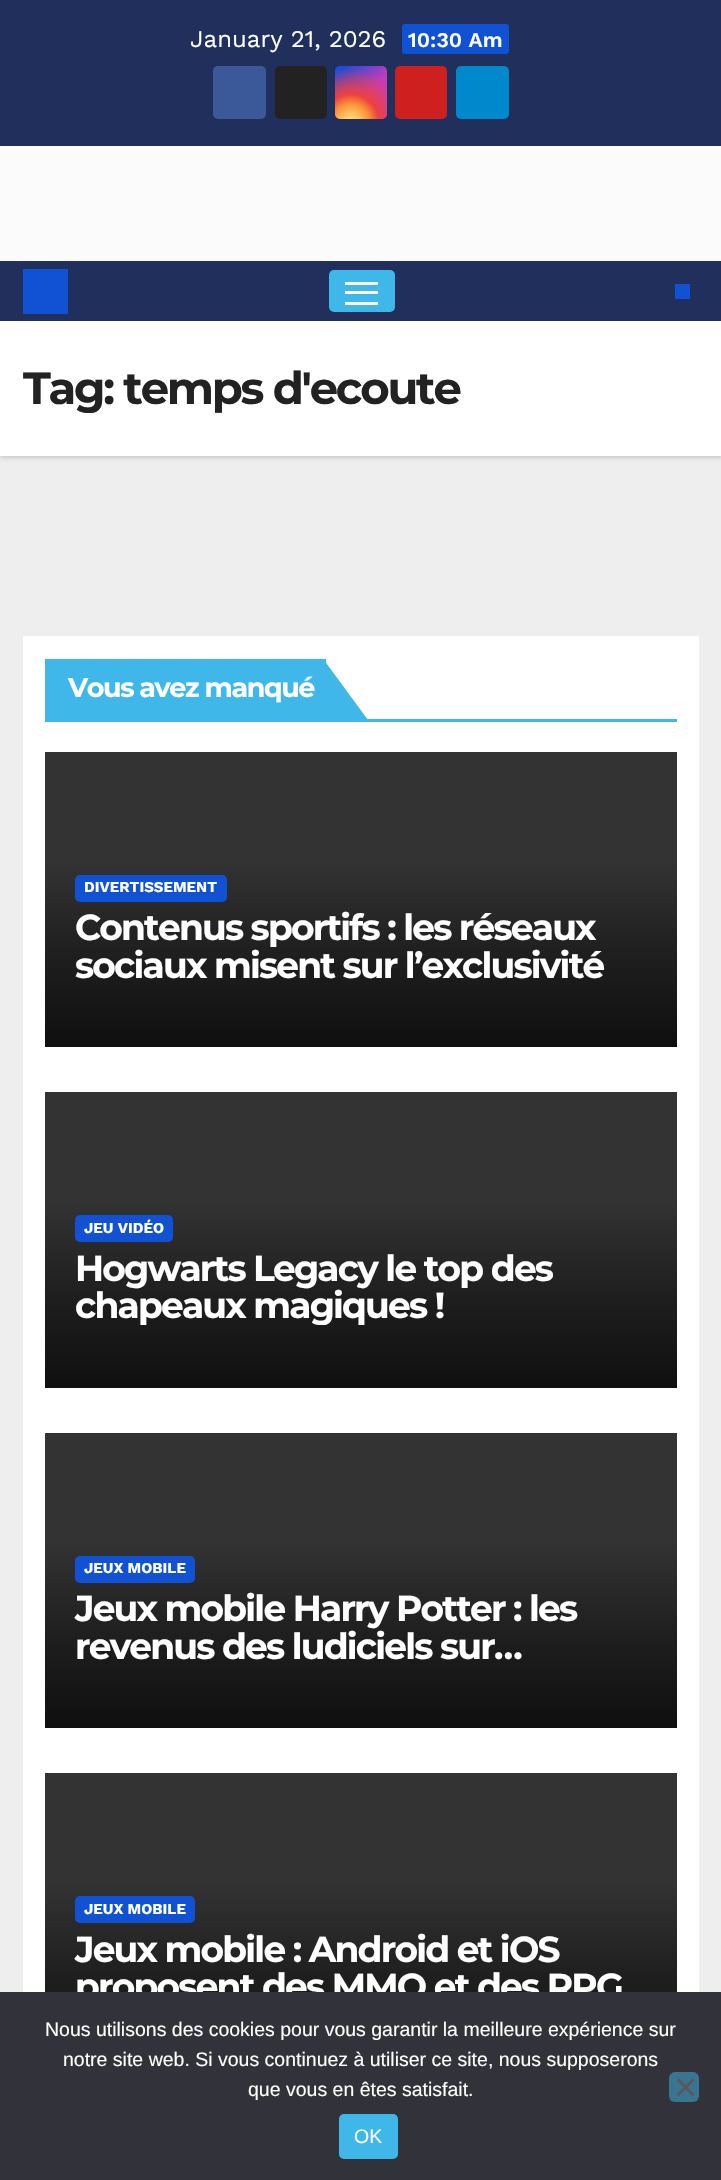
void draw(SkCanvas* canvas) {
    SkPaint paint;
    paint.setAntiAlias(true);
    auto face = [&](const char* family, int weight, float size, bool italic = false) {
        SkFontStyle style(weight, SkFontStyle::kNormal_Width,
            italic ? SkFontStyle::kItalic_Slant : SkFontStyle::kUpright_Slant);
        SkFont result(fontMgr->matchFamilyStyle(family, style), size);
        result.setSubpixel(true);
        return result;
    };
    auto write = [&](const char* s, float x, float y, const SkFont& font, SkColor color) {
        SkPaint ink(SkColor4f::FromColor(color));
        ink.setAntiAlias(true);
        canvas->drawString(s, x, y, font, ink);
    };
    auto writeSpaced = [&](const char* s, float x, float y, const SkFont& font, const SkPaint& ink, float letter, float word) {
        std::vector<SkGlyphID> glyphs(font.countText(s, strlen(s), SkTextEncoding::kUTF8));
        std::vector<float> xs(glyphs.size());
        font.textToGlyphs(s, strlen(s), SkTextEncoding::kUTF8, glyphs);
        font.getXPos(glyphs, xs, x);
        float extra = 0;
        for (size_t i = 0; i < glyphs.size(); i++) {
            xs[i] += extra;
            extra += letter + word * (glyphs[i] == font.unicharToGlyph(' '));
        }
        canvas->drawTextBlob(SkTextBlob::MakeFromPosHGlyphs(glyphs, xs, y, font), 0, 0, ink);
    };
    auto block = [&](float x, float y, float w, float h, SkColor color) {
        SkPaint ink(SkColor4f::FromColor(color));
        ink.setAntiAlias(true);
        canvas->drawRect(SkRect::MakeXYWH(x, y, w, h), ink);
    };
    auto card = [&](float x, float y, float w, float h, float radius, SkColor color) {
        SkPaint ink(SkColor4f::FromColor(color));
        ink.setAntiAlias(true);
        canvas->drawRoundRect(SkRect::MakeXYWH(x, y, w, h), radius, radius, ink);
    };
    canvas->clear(SkColorSetRGB(238, 238, 238));
    block(0, 0, 721, 146, SkColorSetRGB(32, 47, 91));
    auto kFont1 = face("Work Sans", 400, 24);
    write("January 21, 2026", 190, 47, kFont1, SK_ColorWHITE);
    card(402, 24, 107, 30, 3, SkColorSetRGB(17, 81, 211));
    auto kFont2 = face("Work Sans", 600, 21);
    write("10:30 Am", 408, 47, kFont2, SK_ColorWHITE);
    card(213, 66, 53, 53, 5, SkColorSetRGB(59, 89, 152));
    card(275, 66, 52, 53, 5, SkColorSetRGB(34, 34, 34));
    {
        const SkColor colors[] = {SkColorSetRGB(35, 75, 215), SkColorSetRGB(195, 60, 190)};
        const float stops[] = {0.12f, 0.58f};
        const SkPoint ends[] = {{335, 66}, {387, 119}};
        paint.setShader(SkGradientShader::MakeLinear(ends, colors, stops, 2, SkTileMode::kClamp));
        paint.setAlpha(255);
    }
    canvas->drawRoundRect(SkRect::MakeXYWH(335, 66, 52, 53), 5, 5, paint);
    {
        const SkColor colors[] = {SkColorSetRGB(255, 225, 125), SkColorSetRGB(255, 205, 105), SkColorSetRGB(250, 145, 55), SkColorSetRGB(235, 65, 65), SkColorSetARGB(0, 235, 65, 65)};
        const float stops[] = {0, 0.1f, 0.28f, 0.42f, 0.82f};
        paint.setShader(SkGradientShader::MakeRadial({351, 122}, 66, colors, stops, 5, SkTileMode::kClamp));
        paint.setAlpha(255);
    }
    canvas->drawRoundRect(SkRect::MakeXYWH(335, 66, 52, 53), 5, 5, paint);
    card(395, 66, 52, 53, 5, SkColorSetRGB(205, 32, 31));
    card(456, 66, 53, 53, 5, SkColorSetRGB(0, 136, 204));
    block(0, 146, 721, 115, SkColorSetRGB(251, 251, 251));
    paint.setShader(nullptr);
    paint.setColor(SkColorSetARGB(38, 0, 0, 0));
    paint.setMaskFilter(SkMaskFilter::MakeBlur(kNormal_SkBlurStyle, 2));
    canvas->drawRect(SkRect::MakeXYWH(0, 323, 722, 135), paint);
    paint.setMaskFilter(nullptr);
    block(0, 261, 721, 60, SkColorSetRGB(32, 47, 91));
    block(23, 269, 45, 45, SkColorSetRGB(17, 81, 211));
    card(329, 270, 66, 42, 5, SkColorSetRGB(63, 183, 232));
    block(345, 282, 33, 3, SK_ColorWHITE);
    block(345, 291, 33, 3, SK_ColorWHITE);
    block(345, 302, 33, 3, SK_ColorWHITE);
    block(675, 284, 15, 15, SkColorSetRGB(17, 81, 211));
    block(0, 321, 721, 135, SK_ColorWHITE);
    auto kFont3 = face("Montserrat", 700, 45);
    paint.setColor(SkColorSetRGB(34, 34, 34));
    writeSpaced("Tag: temps d'ecoute", 23, 404, kFont3, paint, -2.25f, 0);
    block(23, 636, 676, 1356, SK_ColorWHITE);
    block(45, 719, 632, 3, SkColorSetRGB(63, 183, 232));
    block(45, 659, 281, 60, SkColorSetRGB(63, 183, 232));
    auto kFont4 = face("Montserrat", 700, 27);
    paint.setColor(SK_ColorWHITE);
    writeSpaced("Vous avez manqué", 68, 697, kFont4, paint, -1.4f, 0);
    paint.setColor(SkColorSetRGB(63, 183, 232));
    canvas->drawPath(SkPathBuilder().moveTo(368, 720).lineTo(324, 720).lineTo(324, 660).close().detach(), paint);
    block(45, 752, 632, 108, SkColorSetRGB(51, 51, 51));
    {
        const SkColor colors[] = {SkColorSetRGB(51, 51, 51), SkColorSetRGB(31, 31, 31), SkColorSetRGB(15, 15, 15)};
        const float stops[] = {0, 0.5f, 1};
        const SkPoint ends[] = {{361, 860}, {361, 1047}};
        paint.setShader(SkGradientShader::MakeLinear(ends, colors, stops, 3, SkTileMode::kClamp));
        paint.setAlpha(255);
    }
    canvas->drawRect(SkRect::MakeXYWH(45, 860, 632, 187), paint);
    card(75, 875, 152, 27, 5, SkColorSetRGB(17, 81, 211));
    auto kFont5 = face("Work Sans", 700, 15);
    write("DIVERTISSEMENT", 84, 892, kFont5, SK_ColorWHITE);
    auto kFont6 = face("Montserrat", 700, 36);
    paint.setShader(nullptr);
    paint.setColor(SK_ColorWHITE);
    writeSpaced("Contenus sportifs : les réseaux", 75, 940, kFont6, paint, -1.8f, 0);
    writeSpaced("sociaux misent sur l’exclusivité", 75, 978, kFont6, paint, -1.8f, 0);
    block(45, 1092, 632, 108, SkColorSetRGB(51, 51, 51));
    {
        const SkColor colors[] = {SkColorSetRGB(51, 51, 51), SkColorSetRGB(31, 31, 31), SkColorSetRGB(15, 15, 15)};
        const float stops[] = {0, 0.5f, 1};
        const SkPoint ends[] = {{361, 1200}, {361, 1388}};
        paint.setShader(SkGradientShader::MakeLinear(ends, colors, stops, 3, SkTileMode::kClamp));
        paint.setAlpha(255);
    }
    canvas->drawRect(SkRect::MakeXYWH(45, 1200, 632, 188), paint);
    card(75, 1215, 98, 27, 5, SkColorSetRGB(17, 81, 211));
    write("JEU VIDÉO", 84, 1233, kFont5, SK_ColorWHITE);
    paint.setShader(nullptr);
    paint.setColor(SK_ColorWHITE);
    writeSpaced("Hogwarts Legacy le top des", 75, 1281, kFont6, paint, -1.8f, 0);
    canvas->save();
    canvas->clipRect(SkRect::MakeXYWH(75, 1250, 572, 75));
    writeSpaced("chapeaux magiques !", 75, 1318, kFont6, paint, -1.8f, 0);
    canvas->restore();
    block(45, 1433, 632, 108, SkColorSetRGB(51, 51, 51));
    {
        const SkColor colors[] = {SkColorSetRGB(51, 51, 51), SkColorSetRGB(31, 31, 31), SkColorSetRGB(15, 15, 15)};
        const float stops[] = {0, 0.5f, 1};
        const SkPoint ends[] = {{361, 1541}, {361, 1728}};
        paint.setShader(SkGradientShader::MakeLinear(ends, colors, stops, 3, SkTileMode::kClamp));
        paint.setAlpha(255);
    }
    canvas->drawRect(SkRect::MakeXYWH(45, 1541, 632, 187), paint);
    card(75, 1556, 120, 27, 5, SkColorSetRGB(17, 81, 211));
    write("JEUX MOBILE", 84, 1573, kFont5, SK_ColorWHITE);
    paint.setShader(nullptr);
    paint.setColor(SK_ColorWHITE);
    writeSpaced("Jeux mobile Harry Potter : les", 75, 1621, kFont6, paint, -1.8f, 0);
    writeSpaced("revenus des ludiciels sur…", 75, 1659, kFont6, paint, -1.8f, 0);
    block(45, 1773, 632, 108, SkColorSetRGB(51, 51, 51));
    {
        const SkColor colors[] = {SkColorSetRGB(51, 51, 51), SkColorSetRGB(31, 31, 31), SkColorSetRGB(15, 15, 15)};
        const float stops[] = {0, 0.5f, 1};
        const SkPoint ends[] = {{361, 1881}, {361, 2069}};
        paint.setShader(SkGradientShader::MakeLinear(ends, colors, stops, 3, SkTileMode::kClamp));
        paint.setAlpha(255);
    }
    canvas->drawRect(SkRect::MakeXYWH(45, 1881, 632, 111), paint);
    card(75, 1896, 120, 27, 5, SkColorSetRGB(17, 81, 211));
    write("JEUX MOBILE", 84, 1914, kFont5, SK_ColorWHITE);
    paint.setShader(nullptr);
    paint.setColor(SK_ColorWHITE);
    writeSpaced("Jeux mobile : Android et iOS", 75, 1962, kFont6, paint, -1.8f, 0);
    writeSpaced("proposent des MMO et des RPG", 75, 1999, kFont6, paint, -1.8f, 0);
    block(0, 1992, 721, 188, SkColorSetRGB(50, 50, 58));
    auto kFont7 = face("Liberation Sans", 400, 19.5f);
    write("Nous utilisons des cookies pour vous garantir la meilleure expérience sur", 45, 2036, kFont7, SK_ColorWHITE);
    write("notre site web. Si vous continuez à utiliser ce site, nous supposerons", 63, 2066, kFont7, SK_ColorWHITE);
    write("que vous en êtes satisfait.", 248, 2096, kFont7, SK_ColorWHITE);
    card(669, 2072, 30, 30, 6, SkColorSetRGB(57, 117, 145));
    paint.setColor(SkColorSetRGB(89, 89, 93));
    canvas->drawPath(SkPathBuilder().moveTo(692.5f, 2078).lineTo(694.5f, 2080.5f).lineTo(678.5f, 2096.5f).lineTo(676.5f, 2094).close().detach(), paint);
    canvas->drawPath(SkPathBuilder().moveTo(676.5f, 2080.5f).lineTo(678.5f, 2078).lineTo(694.5f, 2094).lineTo(692.5f, 2096.5f).close().detach(), paint);
    card(339, 2114, 59, 45, 5, SkColorSetRGB(63, 183, 232));
    write("OK", 354, 2143, kFont7, SK_ColorWHITE);
}
